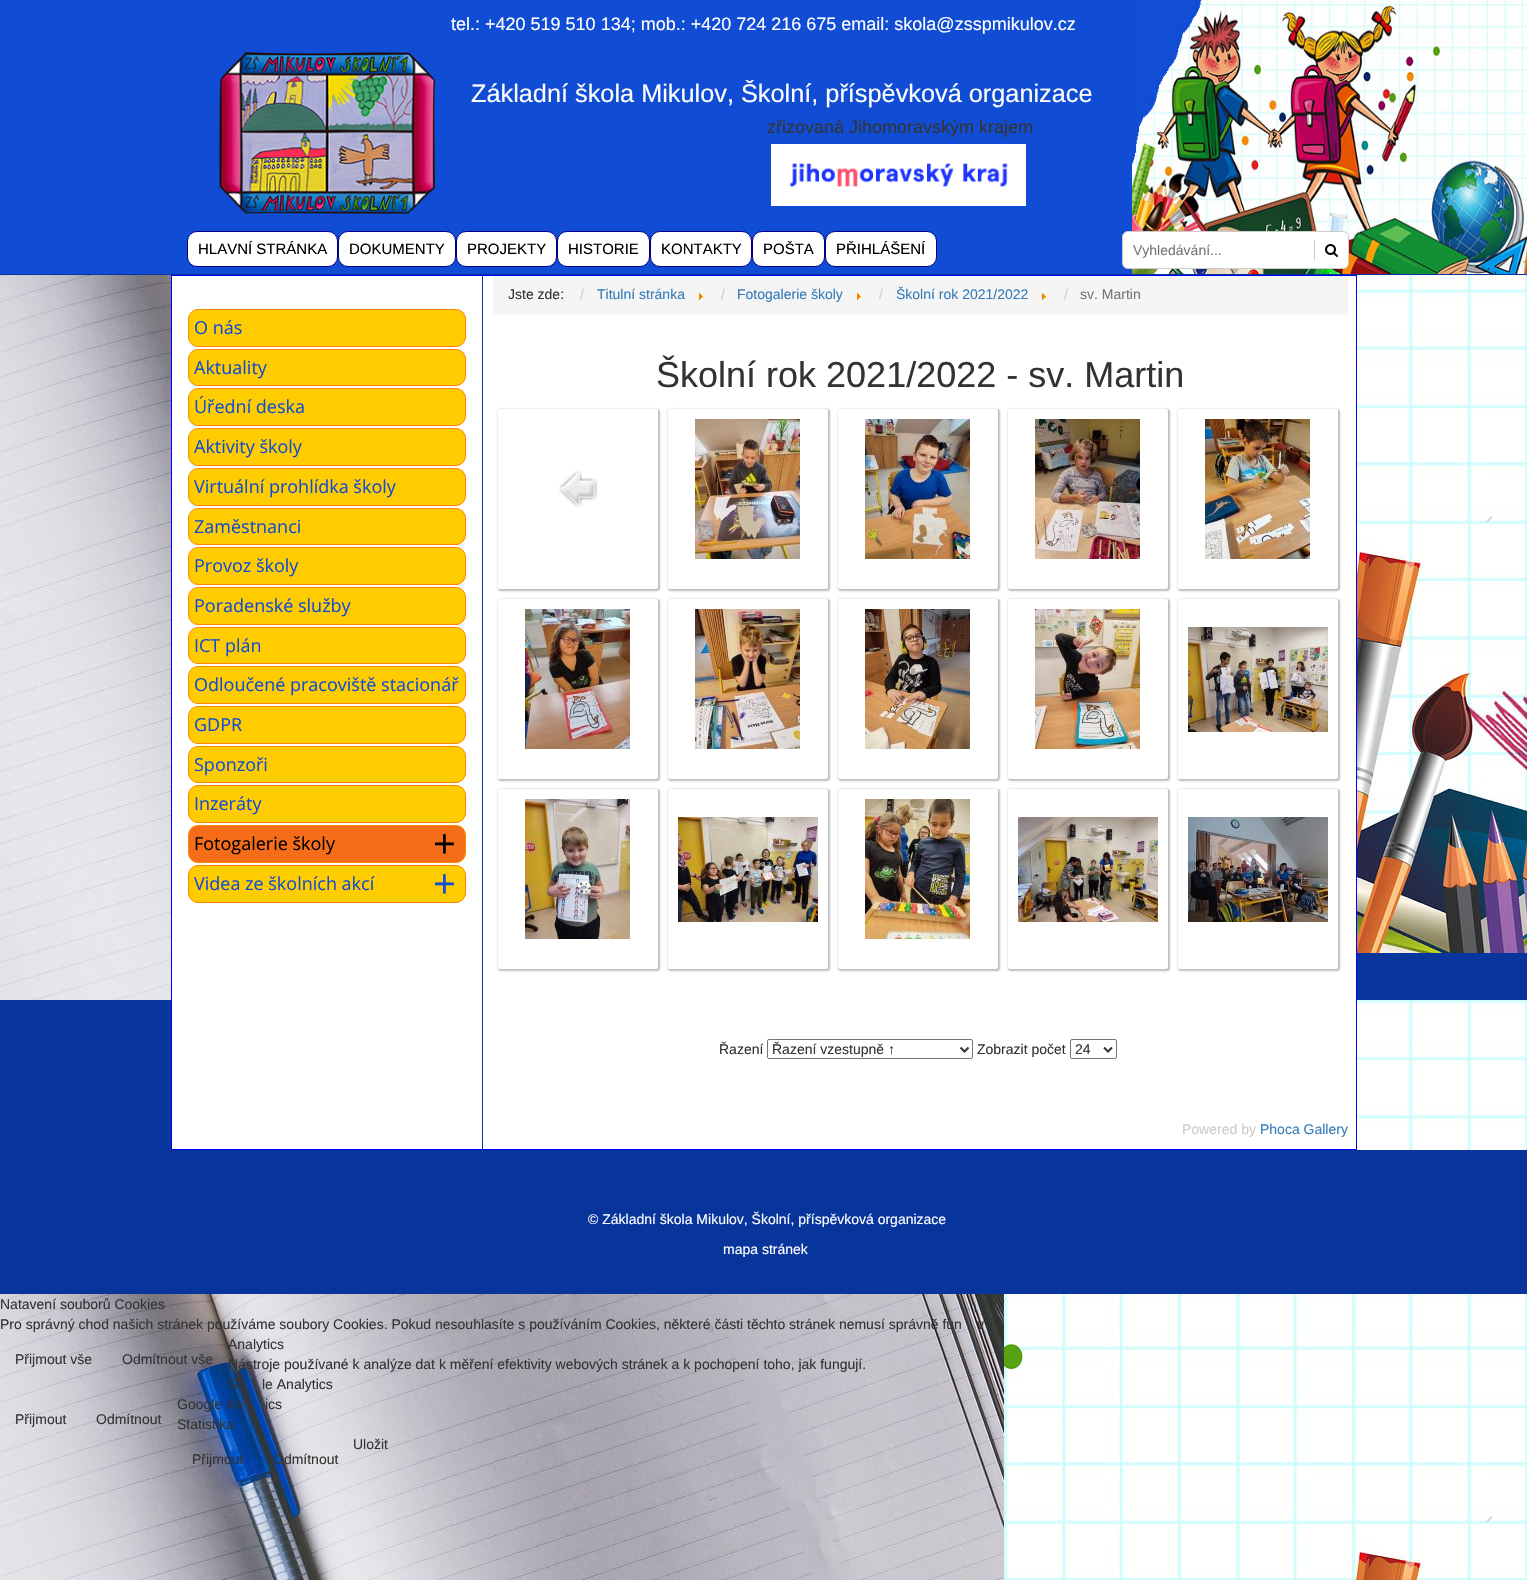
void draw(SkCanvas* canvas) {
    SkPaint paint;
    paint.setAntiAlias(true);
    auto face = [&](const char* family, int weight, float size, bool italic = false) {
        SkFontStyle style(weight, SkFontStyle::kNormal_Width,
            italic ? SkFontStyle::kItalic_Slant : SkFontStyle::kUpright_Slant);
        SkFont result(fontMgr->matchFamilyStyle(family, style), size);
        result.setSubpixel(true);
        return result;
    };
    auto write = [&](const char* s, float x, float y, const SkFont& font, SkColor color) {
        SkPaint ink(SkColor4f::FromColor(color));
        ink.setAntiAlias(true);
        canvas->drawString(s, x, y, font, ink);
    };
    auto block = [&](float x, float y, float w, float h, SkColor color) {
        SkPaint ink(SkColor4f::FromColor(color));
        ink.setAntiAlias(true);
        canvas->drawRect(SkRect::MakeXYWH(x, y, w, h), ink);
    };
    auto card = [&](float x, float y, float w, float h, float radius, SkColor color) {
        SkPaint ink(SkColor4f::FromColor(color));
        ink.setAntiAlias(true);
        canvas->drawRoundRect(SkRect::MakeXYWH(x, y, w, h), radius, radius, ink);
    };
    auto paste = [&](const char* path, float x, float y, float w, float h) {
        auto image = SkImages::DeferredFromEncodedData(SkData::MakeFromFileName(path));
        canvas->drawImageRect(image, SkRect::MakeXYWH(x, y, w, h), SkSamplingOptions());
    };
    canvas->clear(SK_ColorWHITE);
    paste("pic1.png", 0, 275, 1527, 1305);
    block(0, 0, 1132, 274, SkColorSetRGB(16, 77, 212));
    paste("pic2.png", 1132, 0, 395, 274);
    block(0, 274, 1527, 1, SkColorSetRGB(8, 53, 155));
    auto kFont1 = face("Liberation Sans", 400, 18);
    write("tel.: +420 519 510 134; mob.: +420 724 216 675 email: skola@zsspmikulov.cz", 451, 30, kFont1, SK_ColorWHITE);
    paste("pic3.png", 219, 52, 216, 162);
    auto kFont2 = face("Liberation Sans", 400, 25.3f);
    write("Základní škola Mikulov, Školní, příspěvková organizace", 471, 102, kFont2, SK_ColorWHITE);
    write("zřizovaná Jihomoravským krajem", 767, 133, kFont1, SkColorSetRGB(51, 51, 51));
    paste("pic4.png", 771, 144, 255, 62);
    paint.setColor(SK_ColorWHITE);
    canvas->drawRoundRect(SkRect::MakeXYWH(187.5f, 231.5f, 150, 35), 9.5f, 9.5f, paint);
    paint.setStyle(SkPaint::kStroke_Style);
    paint.setStrokeWidth(1);
    paint.setColor(SkColorSetRGB(0, 0, 139));
    canvas->drawRoundRect(SkRect::MakeXYWH(187.5f, 231.5f, 150, 35), 9.5f, 9.5f, paint);
    auto kFont3 = face("Liberation Sans", 400, 15);
    write("HLAVNÍ STRÁNKA", 198, 254, kFont3, SK_ColorBLACK);
    paint.setStyle(SkPaint::kFill_Style);
    paint.setColor(SK_ColorWHITE);
    canvas->drawRoundRect(SkRect::MakeXYWH(338.5f, 231.5f, 117, 35), 9.5f, 9.5f, paint);
    paint.setStyle(SkPaint::kStroke_Style);
    paint.setColor(SkColorSetRGB(0, 0, 139));
    canvas->drawRoundRect(SkRect::MakeXYWH(338.5f, 231.5f, 117, 35), 9.5f, 9.5f, paint);
    write("DOKUMENTY", 349, 254, kFont3, SK_ColorBLACK);
    paint.setStyle(SkPaint::kFill_Style);
    paint.setColor(SK_ColorWHITE);
    canvas->drawRoundRect(SkRect::MakeXYWH(456.5f, 231.5f, 100, 35), 9.5f, 9.5f, paint);
    paint.setStyle(SkPaint::kStroke_Style);
    paint.setColor(SkColorSetRGB(0, 0, 139));
    canvas->drawRoundRect(SkRect::MakeXYWH(456.5f, 231.5f, 100, 35), 9.5f, 9.5f, paint);
    write("PROJEKTY", 467, 254, kFont3, SK_ColorBLACK);
    paint.setStyle(SkPaint::kFill_Style);
    paint.setColor(SK_ColorWHITE);
    canvas->drawRoundRect(SkRect::MakeXYWH(557.5f, 231.5f, 92, 35), 9.5f, 9.5f, paint);
    paint.setStyle(SkPaint::kStroke_Style);
    paint.setColor(SkColorSetRGB(0, 0, 139));
    canvas->drawRoundRect(SkRect::MakeXYWH(557.5f, 231.5f, 92, 35), 9.5f, 9.5f, paint);
    write("HISTORIE", 568, 254, kFont3, SK_ColorBLACK);
    paint.setStyle(SkPaint::kFill_Style);
    paint.setColor(SK_ColorWHITE);
    canvas->drawRoundRect(SkRect::MakeXYWH(650.5f, 231.5f, 101, 35), 9.5f, 9.5f, paint);
    paint.setStyle(SkPaint::kStroke_Style);
    paint.setColor(SkColorSetRGB(0, 0, 139));
    canvas->drawRoundRect(SkRect::MakeXYWH(650.5f, 231.5f, 101, 35), 9.5f, 9.5f, paint);
    write("KONTAKTY", 661, 254, kFont3, SK_ColorBLACK);
    paint.setStyle(SkPaint::kFill_Style);
    paint.setColor(SK_ColorWHITE);
    canvas->drawRoundRect(SkRect::MakeXYWH(752.5f, 231.5f, 72, 35), 9.5f, 9.5f, paint);
    paint.setStyle(SkPaint::kStroke_Style);
    paint.setColor(SkColorSetRGB(0, 0, 139));
    canvas->drawRoundRect(SkRect::MakeXYWH(752.5f, 231.5f, 72, 35), 9.5f, 9.5f, paint);
    write("POŠTA", 763, 254, kFont3, SK_ColorBLACK);
    paint.setStyle(SkPaint::kFill_Style);
    paint.setColor(SK_ColorWHITE);
    canvas->drawRoundRect(SkRect::MakeXYWH(825.5f, 231.5f, 111, 35), 9.5f, 9.5f, paint);
    paint.setStyle(SkPaint::kStroke_Style);
    paint.setColor(SkColorSetRGB(0, 0, 139));
    canvas->drawRoundRect(SkRect::MakeXYWH(825.5f, 231.5f, 111, 35), 9.5f, 9.5f, paint);
    write("PŘIHLÁŠENÍ", 836, 254, kFont3, SK_ColorBLACK);
    paint.setStyle(SkPaint::kFill_Style);
    paint.setColor(SK_ColorWHITE);
    canvas->drawRoundRect(SkRect::MakeXYWH(1122.5f, 231.5f, 226, 37), 5.5f, 5.5f, paint);
    paint.setStyle(SkPaint::kStroke_Style);
    paint.setColor(SkColorSetRGB(204, 204, 204));
    canvas->drawRoundRect(SkRect::MakeXYWH(1122.5f, 231.5f, 226, 37), 5.5f, 5.5f, paint);
    auto kFont4 = face("Liberation Sans", 400, 14);
    write("Vyhledávání...", 1133, 255, kFont4, SkColorSetRGB(117, 117, 117));
    block(1314, 240, 1, 20, SkColorSetRGB(204, 204, 204));
    paste("pic5.png", 1325, 244, 13, 13);
    paint.setStyle(SkPaint::kFill_Style);
    paint.setColor(SK_ColorWHITE);
    canvas->drawRect(SkRect::MakeXYWH(171.5f, 275.5f, 1185, 874), paint);
    paint.setStyle(SkPaint::kStroke_Style);
    paint.setColor(SkColorSetRGB(0, 0, 255));
    canvas->drawRect(SkRect::MakeXYWH(171.5f, 275.5f, 1185, 874), paint);
    paint.setStyle(SkPaint::kFill_Style);
    paint.setColor(SkColorSetRGB(255, 204, 0));
    canvas->drawRoundRect(SkRect::MakeXYWH(188.5f, 309.5f, 277, 37), 9.5f, 9.5f, paint);
    paint.setStyle(SkPaint::kStroke_Style);
    paint.setColor(SkColorSetRGB(255, 133, 3));
    canvas->drawRoundRect(SkRect::MakeXYWH(188.5f, 309.5f, 277, 37), 9.5f, 9.5f, paint);
    auto kFont5 = face("Open Sans", 400, 18);
    write("O nás", 194, 334, kFont5, SkColorSetRGB(16, 77, 212));
    paint.setStyle(SkPaint::kFill_Style);
    paint.setColor(SkColorSetRGB(255, 204, 0));
    canvas->drawRoundRect(SkRect::MakeXYWH(188.5f, 349.5f, 277, 36), 9.5f, 9.5f, paint);
    paint.setStyle(SkPaint::kStroke_Style);
    paint.setColor(SkColorSetRGB(255, 133, 3));
    canvas->drawRoundRect(SkRect::MakeXYWH(188.5f, 349.5f, 277, 36), 9.5f, 9.5f, paint);
    write("Aktuality", 194, 374, kFont5, SkColorSetRGB(16, 77, 212));
    paint.setStyle(SkPaint::kFill_Style);
    paint.setColor(SkColorSetRGB(255, 204, 0));
    canvas->drawRoundRect(SkRect::MakeXYWH(188.5f, 388.5f, 277, 37), 9.5f, 9.5f, paint);
    paint.setStyle(SkPaint::kStroke_Style);
    paint.setColor(SkColorSetRGB(255, 133, 3));
    canvas->drawRoundRect(SkRect::MakeXYWH(188.5f, 388.5f, 277, 37), 9.5f, 9.5f, paint);
    write("Úřední deska", 194, 413, kFont5, SkColorSetRGB(16, 77, 212));
    paint.setStyle(SkPaint::kFill_Style);
    paint.setColor(SkColorSetRGB(255, 204, 0));
    canvas->drawRoundRect(SkRect::MakeXYWH(188.5f, 428.5f, 277, 37), 9.5f, 9.5f, paint);
    paint.setStyle(SkPaint::kStroke_Style);
    paint.setColor(SkColorSetRGB(255, 133, 3));
    canvas->drawRoundRect(SkRect::MakeXYWH(188.5f, 428.5f, 277, 37), 9.5f, 9.5f, paint);
    write("Aktivity školy", 194, 453, kFont5, SkColorSetRGB(16, 77, 212));
    paint.setStyle(SkPaint::kFill_Style);
    paint.setColor(SkColorSetRGB(255, 204, 0));
    canvas->drawRoundRect(SkRect::MakeXYWH(188.5f, 468.5f, 277, 37), 9.5f, 9.5f, paint);
    paint.setStyle(SkPaint::kStroke_Style);
    paint.setColor(SkColorSetRGB(255, 133, 3));
    canvas->drawRoundRect(SkRect::MakeXYWH(188.5f, 468.5f, 277, 37), 9.5f, 9.5f, paint);
    write("Virtuální prohlídka školy", 194, 493, kFont5, SkColorSetRGB(16, 77, 212));
    paint.setStyle(SkPaint::kFill_Style);
    paint.setColor(SkColorSetRGB(255, 204, 0));
    canvas->drawRoundRect(SkRect::MakeXYWH(188.5f, 508.5f, 277, 36), 9.5f, 9.5f, paint);
    paint.setStyle(SkPaint::kStroke_Style);
    paint.setColor(SkColorSetRGB(255, 133, 3));
    canvas->drawRoundRect(SkRect::MakeXYWH(188.5f, 508.5f, 277, 36), 9.5f, 9.5f, paint);
    write("Zaměstnanci", 194, 533, kFont5, SkColorSetRGB(16, 77, 212));
    paint.setStyle(SkPaint::kFill_Style);
    paint.setColor(SkColorSetRGB(255, 204, 0));
    canvas->drawRoundRect(SkRect::MakeXYWH(188.5f, 547.5f, 277, 37), 9.5f, 9.5f, paint);
    paint.setStyle(SkPaint::kStroke_Style);
    paint.setColor(SkColorSetRGB(255, 133, 3));
    canvas->drawRoundRect(SkRect::MakeXYWH(188.5f, 547.5f, 277, 37), 9.5f, 9.5f, paint);
    write("Provoz školy", 194, 572, kFont5, SkColorSetRGB(16, 77, 212));
    paint.setStyle(SkPaint::kFill_Style);
    paint.setColor(SkColorSetRGB(255, 204, 0));
    canvas->drawRoundRect(SkRect::MakeXYWH(188.5f, 587.5f, 277, 37), 9.5f, 9.5f, paint);
    paint.setStyle(SkPaint::kStroke_Style);
    paint.setColor(SkColorSetRGB(255, 133, 3));
    canvas->drawRoundRect(SkRect::MakeXYWH(188.5f, 587.5f, 277, 37), 9.5f, 9.5f, paint);
    write("Poradenské služby", 194, 612, kFont5, SkColorSetRGB(16, 77, 212));
    paint.setStyle(SkPaint::kFill_Style);
    paint.setColor(SkColorSetRGB(255, 204, 0));
    canvas->drawRoundRect(SkRect::MakeXYWH(188.5f, 627.5f, 277, 36), 9.5f, 9.5f, paint);
    paint.setStyle(SkPaint::kStroke_Style);
    paint.setColor(SkColorSetRGB(255, 133, 3));
    canvas->drawRoundRect(SkRect::MakeXYWH(188.5f, 627.5f, 277, 36), 9.5f, 9.5f, paint);
    write("ICT plán", 194, 652, kFont5, SkColorSetRGB(16, 77, 212));
    paint.setStyle(SkPaint::kFill_Style);
    paint.setColor(SkColorSetRGB(255, 204, 0));
    canvas->drawRoundRect(SkRect::MakeXYWH(188.5f, 666.5f, 277, 37), 9.5f, 9.5f, paint);
    paint.setStyle(SkPaint::kStroke_Style);
    paint.setColor(SkColorSetRGB(255, 133, 3));
    canvas->drawRoundRect(SkRect::MakeXYWH(188.5f, 666.5f, 277, 37), 9.5f, 9.5f, paint);
    write("Odloučené pracoviště stacionář", 194, 691, kFont5, SkColorSetRGB(16, 77, 212));
    paint.setStyle(SkPaint::kFill_Style);
    paint.setColor(SkColorSetRGB(255, 204, 0));
    canvas->drawRoundRect(SkRect::MakeXYWH(188.5f, 706.5f, 277, 37), 9.5f, 9.5f, paint);
    paint.setStyle(SkPaint::kStroke_Style);
    paint.setColor(SkColorSetRGB(255, 133, 3));
    canvas->drawRoundRect(SkRect::MakeXYWH(188.5f, 706.5f, 277, 37), 9.5f, 9.5f, paint);
    write("GDPR", 194, 731, kFont5, SkColorSetRGB(16, 77, 212));
    paint.setStyle(SkPaint::kFill_Style);
    paint.setColor(SkColorSetRGB(255, 204, 0));
    canvas->drawRoundRect(SkRect::MakeXYWH(188.5f, 746.5f, 277, 36), 9.5f, 9.5f, paint);
    paint.setStyle(SkPaint::kStroke_Style);
    paint.setColor(SkColorSetRGB(255, 133, 3));
    canvas->drawRoundRect(SkRect::MakeXYWH(188.5f, 746.5f, 277, 36), 9.5f, 9.5f, paint);
    write("Sponzoři", 194, 771, kFont5, SkColorSetRGB(16, 77, 212));
    paint.setStyle(SkPaint::kFill_Style);
    paint.setColor(SkColorSetRGB(255, 204, 0));
    canvas->drawRoundRect(SkRect::MakeXYWH(188.5f, 785.5f, 277, 37), 9.5f, 9.5f, paint);
    paint.setStyle(SkPaint::kStroke_Style);
    paint.setColor(SkColorSetRGB(255, 133, 3));
    canvas->drawRoundRect(SkRect::MakeXYWH(188.5f, 785.5f, 277, 37), 9.5f, 9.5f, paint);
    write("Inzeráty", 194, 810, kFont5, SkColorSetRGB(16, 77, 212));
    paint.setStyle(SkPaint::kFill_Style);
    paint.setColor(SkColorSetRGB(245, 109, 25));
    canvas->drawRoundRect(SkRect::MakeXYWH(188.5f, 825.5f, 277, 37), 9.5f, 9.5f, paint);
    paint.setStyle(SkPaint::kStroke_Style);
    paint.setColor(SkColorSetRGB(255, 133, 3));
    canvas->drawRoundRect(SkRect::MakeXYWH(188.5f, 825.5f, 277, 37), 9.5f, 9.5f, paint);
    write("Fotogalerie školy", 194, 850, kFont5, SK_ColorBLACK);
    auto kFont6 = face("Open Sans", 400, 40);
    write("+", 433, 858, kFont6, SK_ColorBLACK);
    paint.setStyle(SkPaint::kFill_Style);
    paint.setColor(SkColorSetRGB(255, 204, 0));
    canvas->drawRoundRect(SkRect::MakeXYWH(188.5f, 865.5f, 277, 37), 9.5f, 9.5f, paint);
    paint.setStyle(SkPaint::kStroke_Style);
    paint.setColor(SkColorSetRGB(255, 133, 3));
    canvas->drawRoundRect(SkRect::MakeXYWH(188.5f, 865.5f, 277, 37), 9.5f, 9.5f, paint);
    write("Videa ze školních akcí", 194, 890, kFont5, SkColorSetRGB(16, 77, 212));
    write("+", 433, 898, kFont6, SkColorSetRGB(16, 77, 212));
    block(482, 276, 1, 873, SkColorSetRGB(8, 53, 155));
    card(493, 276, 855, 39, 4, SkColorSetRGB(245, 245, 245));
    write("Jste zde:", 508, 299, kFont4, SkColorSetRGB(51, 51, 51));
    write("/", 580, 299, kFont4, SkColorSetRGB(204, 204, 204));
    write("Titulní stránka", 597, 299, kFont4, SkColorSetRGB(51, 122, 183));
    paste("pic6.png", 699, 293, 4, 7);
    write("/", 721, 299, kFont4, SkColorSetRGB(204, 204, 204));
    write("Fotogalerie školy", 737, 299, kFont4, SkColorSetRGB(51, 122, 183));
    paste("pic6.png", 857, 293, 4, 7);
    write("/", 879, 299, kFont4, SkColorSetRGB(204, 204, 204));
    write("Školní rok 2021/2022", 896, 299, kFont4, SkColorSetRGB(51, 122, 183));
    paste("pic6.png", 1042, 293, 4, 7);
    write("/", 1064, 299, kFont4, SkColorSetRGB(204, 204, 204));
    write("sv. Martin", 1080, 299, kFont4, SkColorSetRGB(117, 117, 117));
    auto kFont7 = face("Liberation Sans", 400, 36);
    write("Školní rok 2021/2022 - sv. Martin", 656, 387, kFont7, SkColorSetRGB(51, 51, 51));
    paint.setStyle(SkPaint::kFill_Style);
    paint.setColor(SkColorSetARGB(128, 120, 120, 120));
    paint.setMaskFilter(SkMaskFilter::MakeBlur(kNormal_SkBlurStyle, 1));
    canvas->drawRoundRect(SkRect::MakeXYWH(498, 409, 162, 182), 3, 3, paint);
    paint.setMaskFilter(nullptr);
    card(498, 409, 160, 180, 2, SK_ColorWHITE);
    paste("pic7.png", 559, 470, 39, 38);
    paint.setMaskFilter(SkMaskFilter::MakeBlur(kNormal_SkBlurStyle, 1));
    canvas->drawRoundRect(SkRect::MakeXYWH(668, 409, 162, 182), 3, 3, paint);
    paint.setMaskFilter(nullptr);
    card(668, 409, 160, 180, 2, SK_ColorWHITE);
    paste("pic8.png", 695, 419, 105, 140);
    paint.setMaskFilter(SkMaskFilter::MakeBlur(kNormal_SkBlurStyle, 1));
    canvas->drawRoundRect(SkRect::MakeXYWH(838, 409, 162, 182), 3, 3, paint);
    paint.setMaskFilter(nullptr);
    card(838, 409, 160, 180, 2, SK_ColorWHITE);
    paste("pic9.png", 865, 419, 105, 140);
    paint.setMaskFilter(SkMaskFilter::MakeBlur(kNormal_SkBlurStyle, 1));
    canvas->drawRoundRect(SkRect::MakeXYWH(1008, 409, 162, 182), 3, 3, paint);
    paint.setMaskFilter(nullptr);
    card(1008, 409, 160, 180, 2, SK_ColorWHITE);
    paste("pic10.png", 1035, 419, 105, 140);
    paint.setMaskFilter(SkMaskFilter::MakeBlur(kNormal_SkBlurStyle, 1));
    canvas->drawRoundRect(SkRect::MakeXYWH(1178, 409, 162, 182), 3, 3, paint);
    paint.setMaskFilter(nullptr);
    card(1178, 409, 160, 180, 2, SK_ColorWHITE);
    paste("pic11.png", 1205, 419, 105, 140);
    paint.setMaskFilter(SkMaskFilter::MakeBlur(kNormal_SkBlurStyle, 1));
    canvas->drawRoundRect(SkRect::MakeXYWH(498, 599, 162, 182), 3, 3, paint);
    paint.setMaskFilter(nullptr);
    card(498, 599, 160, 180, 2, SK_ColorWHITE);
    paste("pic12.png", 525, 609, 105, 140);
    paint.setMaskFilter(SkMaskFilter::MakeBlur(kNormal_SkBlurStyle, 1));
    canvas->drawRoundRect(SkRect::MakeXYWH(668, 599, 162, 182), 3, 3, paint);
    paint.setMaskFilter(nullptr);
    card(668, 599, 160, 180, 2, SK_ColorWHITE);
    paste("pic13.png", 695, 609, 105, 140);
    paint.setMaskFilter(SkMaskFilter::MakeBlur(kNormal_SkBlurStyle, 1));
    canvas->drawRoundRect(SkRect::MakeXYWH(838, 599, 162, 182), 3, 3, paint);
    paint.setMaskFilter(nullptr);
    card(838, 599, 160, 180, 2, SK_ColorWHITE);
    paste("pic14.png", 865, 609, 105, 140);
    paint.setMaskFilter(SkMaskFilter::MakeBlur(kNormal_SkBlurStyle, 1));
    canvas->drawRoundRect(SkRect::MakeXYWH(1008, 599, 162, 182), 3, 3, paint);
    paint.setMaskFilter(nullptr);
    card(1008, 599, 160, 180, 2, SK_ColorWHITE);
    paste("pic15.png", 1035, 609, 105, 140);
    paint.setMaskFilter(SkMaskFilter::MakeBlur(kNormal_SkBlurStyle, 1));
    canvas->drawRoundRect(SkRect::MakeXYWH(1178, 599, 162, 182), 3, 3, paint);
    paint.setMaskFilter(nullptr);
    card(1178, 599, 160, 180, 2, SK_ColorWHITE);
    paste("pic16.png", 1188, 627, 140, 105);
    paint.setMaskFilter(SkMaskFilter::MakeBlur(kNormal_SkBlurStyle, 1));
    canvas->drawRoundRect(SkRect::MakeXYWH(498, 789, 162, 182), 3, 3, paint);
    paint.setMaskFilter(nullptr);
    card(498, 789, 160, 180, 2, SK_ColorWHITE);
    paste("pic17.png", 525, 799, 105, 140);
    paint.setMaskFilter(SkMaskFilter::MakeBlur(kNormal_SkBlurStyle, 1));
    canvas->drawRoundRect(SkRect::MakeXYWH(668, 789, 162, 182), 3, 3, paint);
    paint.setMaskFilter(nullptr);
    card(668, 789, 160, 180, 2, SK_ColorWHITE);
    paste("pic18.png", 678, 817, 140, 105);
    paint.setMaskFilter(SkMaskFilter::MakeBlur(kNormal_SkBlurStyle, 1));
    canvas->drawRoundRect(SkRect::MakeXYWH(838, 789, 162, 182), 3, 3, paint);
    paint.setMaskFilter(nullptr);
    card(838, 789, 160, 180, 2, SK_ColorWHITE);
    paste("pic19.png", 865, 799, 105, 140);
    paint.setMaskFilter(SkMaskFilter::MakeBlur(kNormal_SkBlurStyle, 1));
    canvas->drawRoundRect(SkRect::MakeXYWH(1008, 789, 162, 182), 3, 3, paint);
    paint.setMaskFilter(nullptr);
    card(1008, 789, 160, 180, 2, SK_ColorWHITE);
    paste("pic20.png", 1018, 817, 140, 105);
    paint.setMaskFilter(SkMaskFilter::MakeBlur(kNormal_SkBlurStyle, 1));
    canvas->drawRoundRect(SkRect::MakeXYWH(1178, 789, 162, 182), 3, 3, paint);
    paint.setMaskFilter(nullptr);
    card(1178, 789, 160, 180, 2, SK_ColorWHITE);
    paste("pic21.png", 1188, 817, 140, 105);
    write("Řazení", 719, 1054, kFont4, SkColorSetRGB(51, 51, 51));
    paint.setStyle(SkPaint::kStroke_Style);
    paint.setColor(SkColorSetRGB(118, 118, 118));
    canvas->drawRoundRect(SkRect::MakeXYWH(767.5f, 1039.5f, 205, 19), 1.5f, 1.5f, paint);
    paint.setStrokeWidth(2);
    paint.setColor(SkColorSetRGB(51, 51, 51));
    canvas->drawPath(SkPathBuilder().moveTo(960.5f, 1047.5f).lineTo(964.5f, 1051.5f).lineTo(968.5f, 1047.5f).detach(), paint);
    write("Řazení vzestupně ↑", 772, 1054, kFont4, SkColorSetRGB(51, 51, 51));
    write("Zobrazit počet", 977, 1054, kFont4, SkColorSetRGB(51, 51, 51));
    paint.setStrokeWidth(1);
    paint.setColor(SkColorSetRGB(118, 118, 118));
    canvas->drawRoundRect(SkRect::MakeXYWH(1070.5f, 1039.5f, 46, 19), 1.5f, 1.5f, paint);
    paint.setStrokeWidth(2);
    paint.setColor(SkColorSetRGB(51, 51, 51));
    canvas->drawPath(SkPathBuilder().moveTo(1104, 1047.5f).lineTo(1108, 1051.5f).lineTo(1112, 1047.5f).detach(), paint);
    write("24", 1075, 1054, kFont4, SkColorSetRGB(51, 51, 51));
    write("Powered by", 1182, 1134, kFont4, SkColorSetRGB(204, 204, 204));
    write("Phoca Gallery", 1260, 1134, kFont4, SkColorSetRGB(51, 122, 183));
    block(0, 1150, 1527, 144, SkColorSetRGB(8, 53, 155));
    write("© Základní škola Mikulov, Školní, příspěvková organizace", 588, 1224, kFont4, SK_ColorWHITE);
    write("mapa stránek", 723, 1254, kFont4, SK_ColorWHITE);
    write("Natavení souborů Cookies", 0, 1309, kFont4, SkColorSetRGB(51, 51, 51));
    write("Pro správný chod našich stránek používáme soubory Cookies. Pokud nesouhlasíte s používáním Cookies, některé části těchto stránek nemusí správně fun", 0, 1329, kFont4, SkColorSetRGB(51, 51, 51));
    write("v", 977, 1329, kFont4, SkColorSetRGB(51, 51, 51));
    write("Analytics", 228, 1349, kFont4, SkColorSetRGB(51, 51, 51));
    write("Nástroje používané k analýze dat k měření efektivity webových stránek a k pochopení toho, jak fungují.", 228, 1369, kFont4, SkColorSetRGB(51, 51, 51));
    write("G", 228, 1389, kFont4, SkColorSetRGB(51, 51, 51));
    write("le Analytics", 262, 1389, kFont4, SkColorSetRGB(51, 51, 51));
    write("Přijmout", 15, 1424, kFont4, SkColorSetRGB(51, 51, 51));
    write("Odmítnout", 96, 1424, kFont4, SkColorSetRGB(51, 51, 51));
    write("Přijmout vše", 15, 1364, kFont4, SkColorSetRGB(51, 51, 51));
    write("Odmítnout vše", 122, 1364, kFont4, SkColorSetRGB(51, 51, 51));
    write("Google An", 177, 1409, kFont4, SkColorSetRGB(51, 51, 51));
    write("ics", 265, 1409, kFont4, SkColorSetRGB(51, 51, 51));
    write("Statistika", 177, 1429, kFont4, SkColorSetRGB(51, 51, 51));
    write("Přijmout", 192, 1464, kFont4, SkColorSetRGB(51, 51, 51));
    write("Odmítnout", 273, 1464, kFont4, SkColorSetRGB(51, 51, 51));
    write("Uložit", 353, 1449, kFont4, SkColorSetRGB(51, 51, 51));
}
